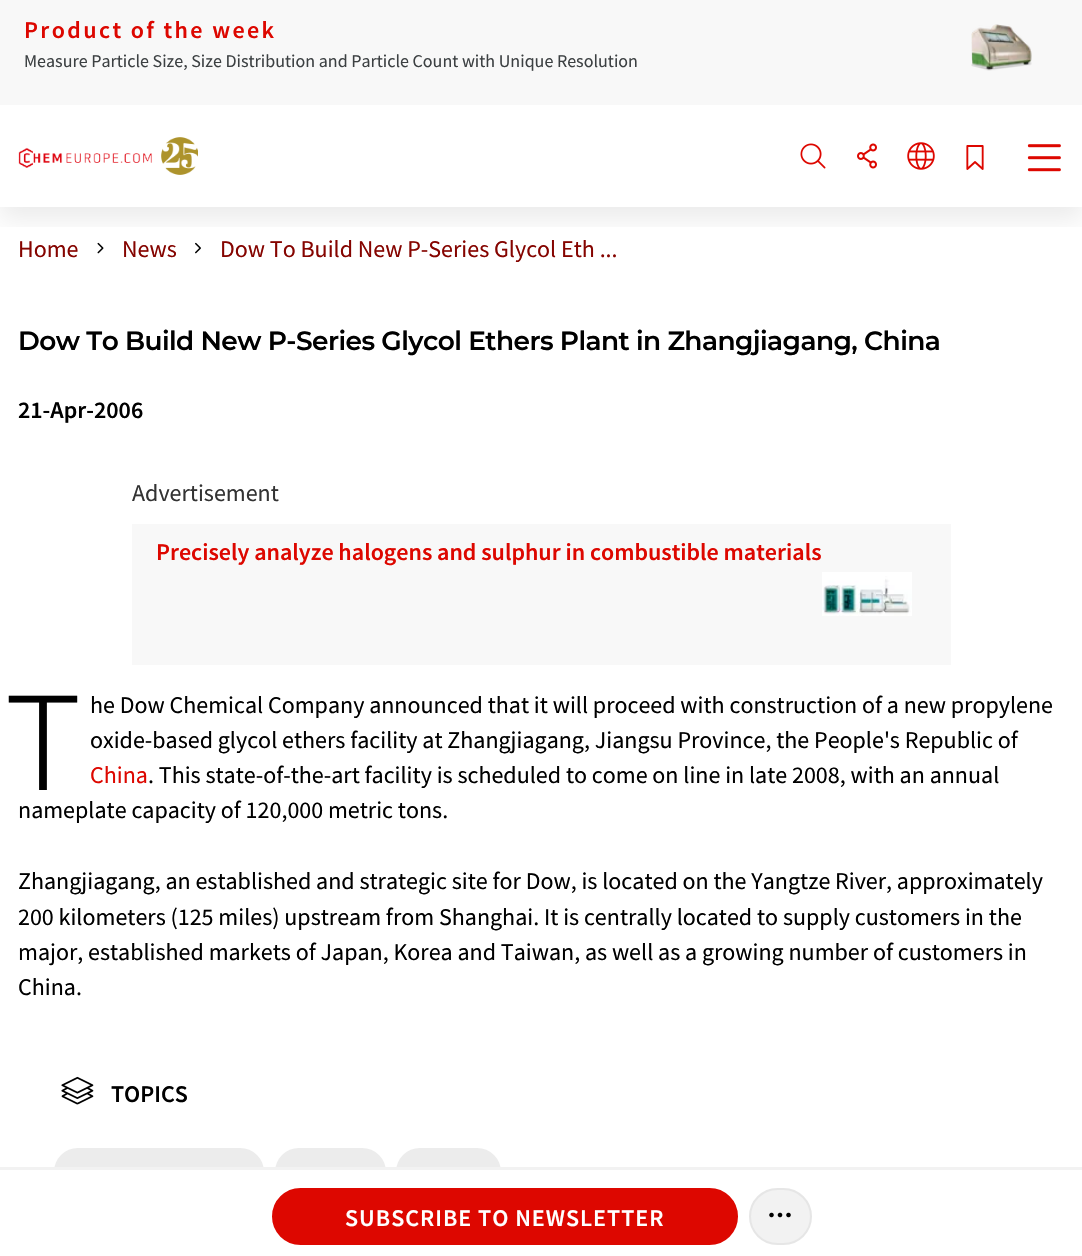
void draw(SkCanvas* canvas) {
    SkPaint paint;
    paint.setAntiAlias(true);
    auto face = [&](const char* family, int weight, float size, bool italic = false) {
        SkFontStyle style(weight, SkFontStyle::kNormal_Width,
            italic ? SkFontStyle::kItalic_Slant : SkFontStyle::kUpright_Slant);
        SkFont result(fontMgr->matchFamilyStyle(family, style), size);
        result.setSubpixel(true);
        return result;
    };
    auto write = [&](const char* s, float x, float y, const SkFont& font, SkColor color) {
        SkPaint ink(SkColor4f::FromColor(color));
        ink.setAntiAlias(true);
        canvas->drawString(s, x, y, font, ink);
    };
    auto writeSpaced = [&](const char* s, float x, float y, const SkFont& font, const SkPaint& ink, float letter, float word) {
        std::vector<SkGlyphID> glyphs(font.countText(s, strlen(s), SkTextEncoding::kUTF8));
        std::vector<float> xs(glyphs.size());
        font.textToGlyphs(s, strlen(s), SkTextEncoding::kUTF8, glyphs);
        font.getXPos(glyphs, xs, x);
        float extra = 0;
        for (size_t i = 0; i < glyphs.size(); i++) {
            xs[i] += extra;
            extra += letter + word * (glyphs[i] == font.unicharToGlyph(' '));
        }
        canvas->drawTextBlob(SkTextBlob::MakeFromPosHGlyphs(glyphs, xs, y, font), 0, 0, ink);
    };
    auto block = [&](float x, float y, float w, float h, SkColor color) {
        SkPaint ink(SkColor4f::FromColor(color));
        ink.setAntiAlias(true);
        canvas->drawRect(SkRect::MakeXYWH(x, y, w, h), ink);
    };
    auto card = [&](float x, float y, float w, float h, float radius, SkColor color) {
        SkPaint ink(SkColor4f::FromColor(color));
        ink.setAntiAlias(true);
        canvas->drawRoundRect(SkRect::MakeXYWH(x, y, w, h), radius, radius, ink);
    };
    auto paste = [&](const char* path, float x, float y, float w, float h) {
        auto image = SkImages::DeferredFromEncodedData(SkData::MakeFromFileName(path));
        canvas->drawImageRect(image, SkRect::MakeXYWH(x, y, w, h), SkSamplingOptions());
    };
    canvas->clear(SK_ColorWHITE);
    paste("pic8.png", 97, 242, 7, 12);
    paste("pic9.png", 195, 242, 6, 12);
    canvas->save();
    canvas->clipRect(SkRect::MakeXYWH(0, 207, 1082, 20));
    paint.setColor(SkColorSetARGB(20, 0, 0, 0));
    paint.setMaskFilter(SkMaskFilter::MakeBlur(kNormal_SkBlurStyle, 12));
    canvas->drawRect(SkRect::MakeXYWH(0, 12, 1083, 207), paint);
    paint.setMaskFilter(nullptr);
    canvas->restore();
    block(0, 0, 1082, 105, SkColorSetRGB(248, 248, 248));
    auto kFont1 = face("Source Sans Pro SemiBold", 600, 24);
    paint.setColor(SkColorSetRGB(221, 7, 0));
    writeSpaced("Product of the week", 24, 38, kFont1, paint, 2.4f, 0);
    auto kFont2 = face("Source Sans Pro", 400, 18);
    write("Measure Particle Size, Size Distribution and Particle Count with Unique Resolution", 24, 67, kFont2, SkColorSetRGB(60, 64, 66));
    paste("pic1.png", 971, 24, 61, 47);
    paste("pic2.png", 18, 137, 180, 38);
    paste("pic3.png", 800, 143, 26, 26);
    paste("pic4.png", 857, 143, 20, 26);
    paste("pic5.png", 907, 142, 28, 28);
    paste("pic6.png", 966, 145, 18, 25);
    paste("pic7.png", 1027, 144, 34, 28);
    auto kFont3 = face("Source Sans Pro", 400, 24);
    write("Home", 18, 257, kFont3, SkColorSetRGB(133, 4, 0));
    write("News", 122, 257, kFont3, SkColorSetRGB(133, 4, 0));
    write("Dow To Build New P-Series Glycol Eth ...", 220, 257, kFont3, SkColorSetRGB(133, 4, 0));
    auto kFont4 = face("Montserrat", 100, 26.4f);
    paint.setColor(SK_ColorBLACK);
    writeSpaced("Dow To Build New P-Series Glycol Ethers Plant in Zhangjiagang, China", 18, 350, kFont4, paint, -0.53f, 0);
    write("21-Apr-2006", 18, 418, kFont1, SK_ColorBLACK);
    write("Advertisement", 132, 501, kFont3, SkColorSetRGB(51, 51, 51));
    block(132, 524, 819, 141, SkColorSetRGB(248, 248, 248));
    write("Precisely analyze halogens and sulphur in combustible materials", 156, 560, kFont1, SkColorSetRGB(221, 7, 0));
    paste("pic10.png", 822, 572, 90, 44);
    auto kFont5 = face("Noto Sans", 300, 132);
    write("T", 8, 790, kFont5, SK_ColorBLACK);
    write("he Dow Chemical Company announced that it will proceed with construction of a new propylene", 90, 713, kFont3, SK_ColorBLACK);
    write("oxide-based glycol ethers facility at Zhangjiagang, Jiangsu Province, the People's Republic of", 90, 748, kFont3, SK_ColorBLACK);
    write("China", 90, 783, kFont3, SkColorSetRGB(221, 7, 0));
    write(". This state-of-the-art facility is scheduled to come on line in late 2008, with an annual", 148, 783, kFont3, SK_ColorBLACK);
    write("nameplate capacity of 120,000 metric tons.", 18, 818, kFont3, SK_ColorBLACK);
    write("Zhangjiagang, an established and strategic site for Dow, is located on the Yangtze River, approximately", 18, 889, kFont3, SK_ColorBLACK);
    write("200 kilometers (125 miles) upstream from Shanghai. It is centrally located to supply customers in the", 18, 925, kFont3, SK_ColorBLACK);
    write("major, established markets of Japan, Korea and Taiwan, as well as a growing number of customers in", 18, 960, kFont3, SK_ColorBLACK);
    write("China.", 18, 995, kFont3, SK_ColorBLACK);
    paste("pic11.png", 61, 1076, 33, 29);
    write("TOPICS", 111, 1102, kFont1, SK_ColorBLACK);
    card(54, 1148, 210, 48, 24, SkColorSetRGB(236, 236, 236));
    card(275, 1148, 111, 48, 24, SkColorSetRGB(236, 236, 236));
    card(396, 1148, 105, 48, 24, SkColorSetRGB(236, 236, 236));
    block(54, 1170, 447, 26, SK_ColorWHITE);
    block(0, 1167, 1082, 3, SkColorSetRGB(242, 242, 242));
    paint.setColor(SkColorSetRGB(221, 7, 0));
    canvas->drawRoundRect(SkRect::MakeXYWH(273, 1189, 464, 55), 27.5f, 27.5f, paint);
    paint.setStyle(SkPaint::kStroke_Style);
    paint.setStrokeWidth(2);
    canvas->drawRoundRect(SkRect::MakeXYWH(273, 1189, 464, 55), 27.5f, 27.5f, paint);
    paint.setStyle(SkPaint::kFill_Style);
    paint.setColor(SK_ColorWHITE);
    writeSpaced("SUBSCRIBE TO NEWSLETTER", 345, 1226, kFont1, paint, 1, 0);
    paint.setColor(SkColorSetRGB(242, 242, 242));
    canvas->drawRoundRect(SkRect::MakeXYWH(750, 1189, 61, 55), 27.5f, 27.5f, paint);
    paint.setStyle(SkPaint::kStroke_Style);
    paint.setColor(SkColorSetRGB(230, 230, 230));
    canvas->drawRoundRect(SkRect::MakeXYWH(750, 1189, 61, 55), 27.5f, 27.5f, paint);
    paste("pic12.png", 769, 1212, 22, 6);
}
